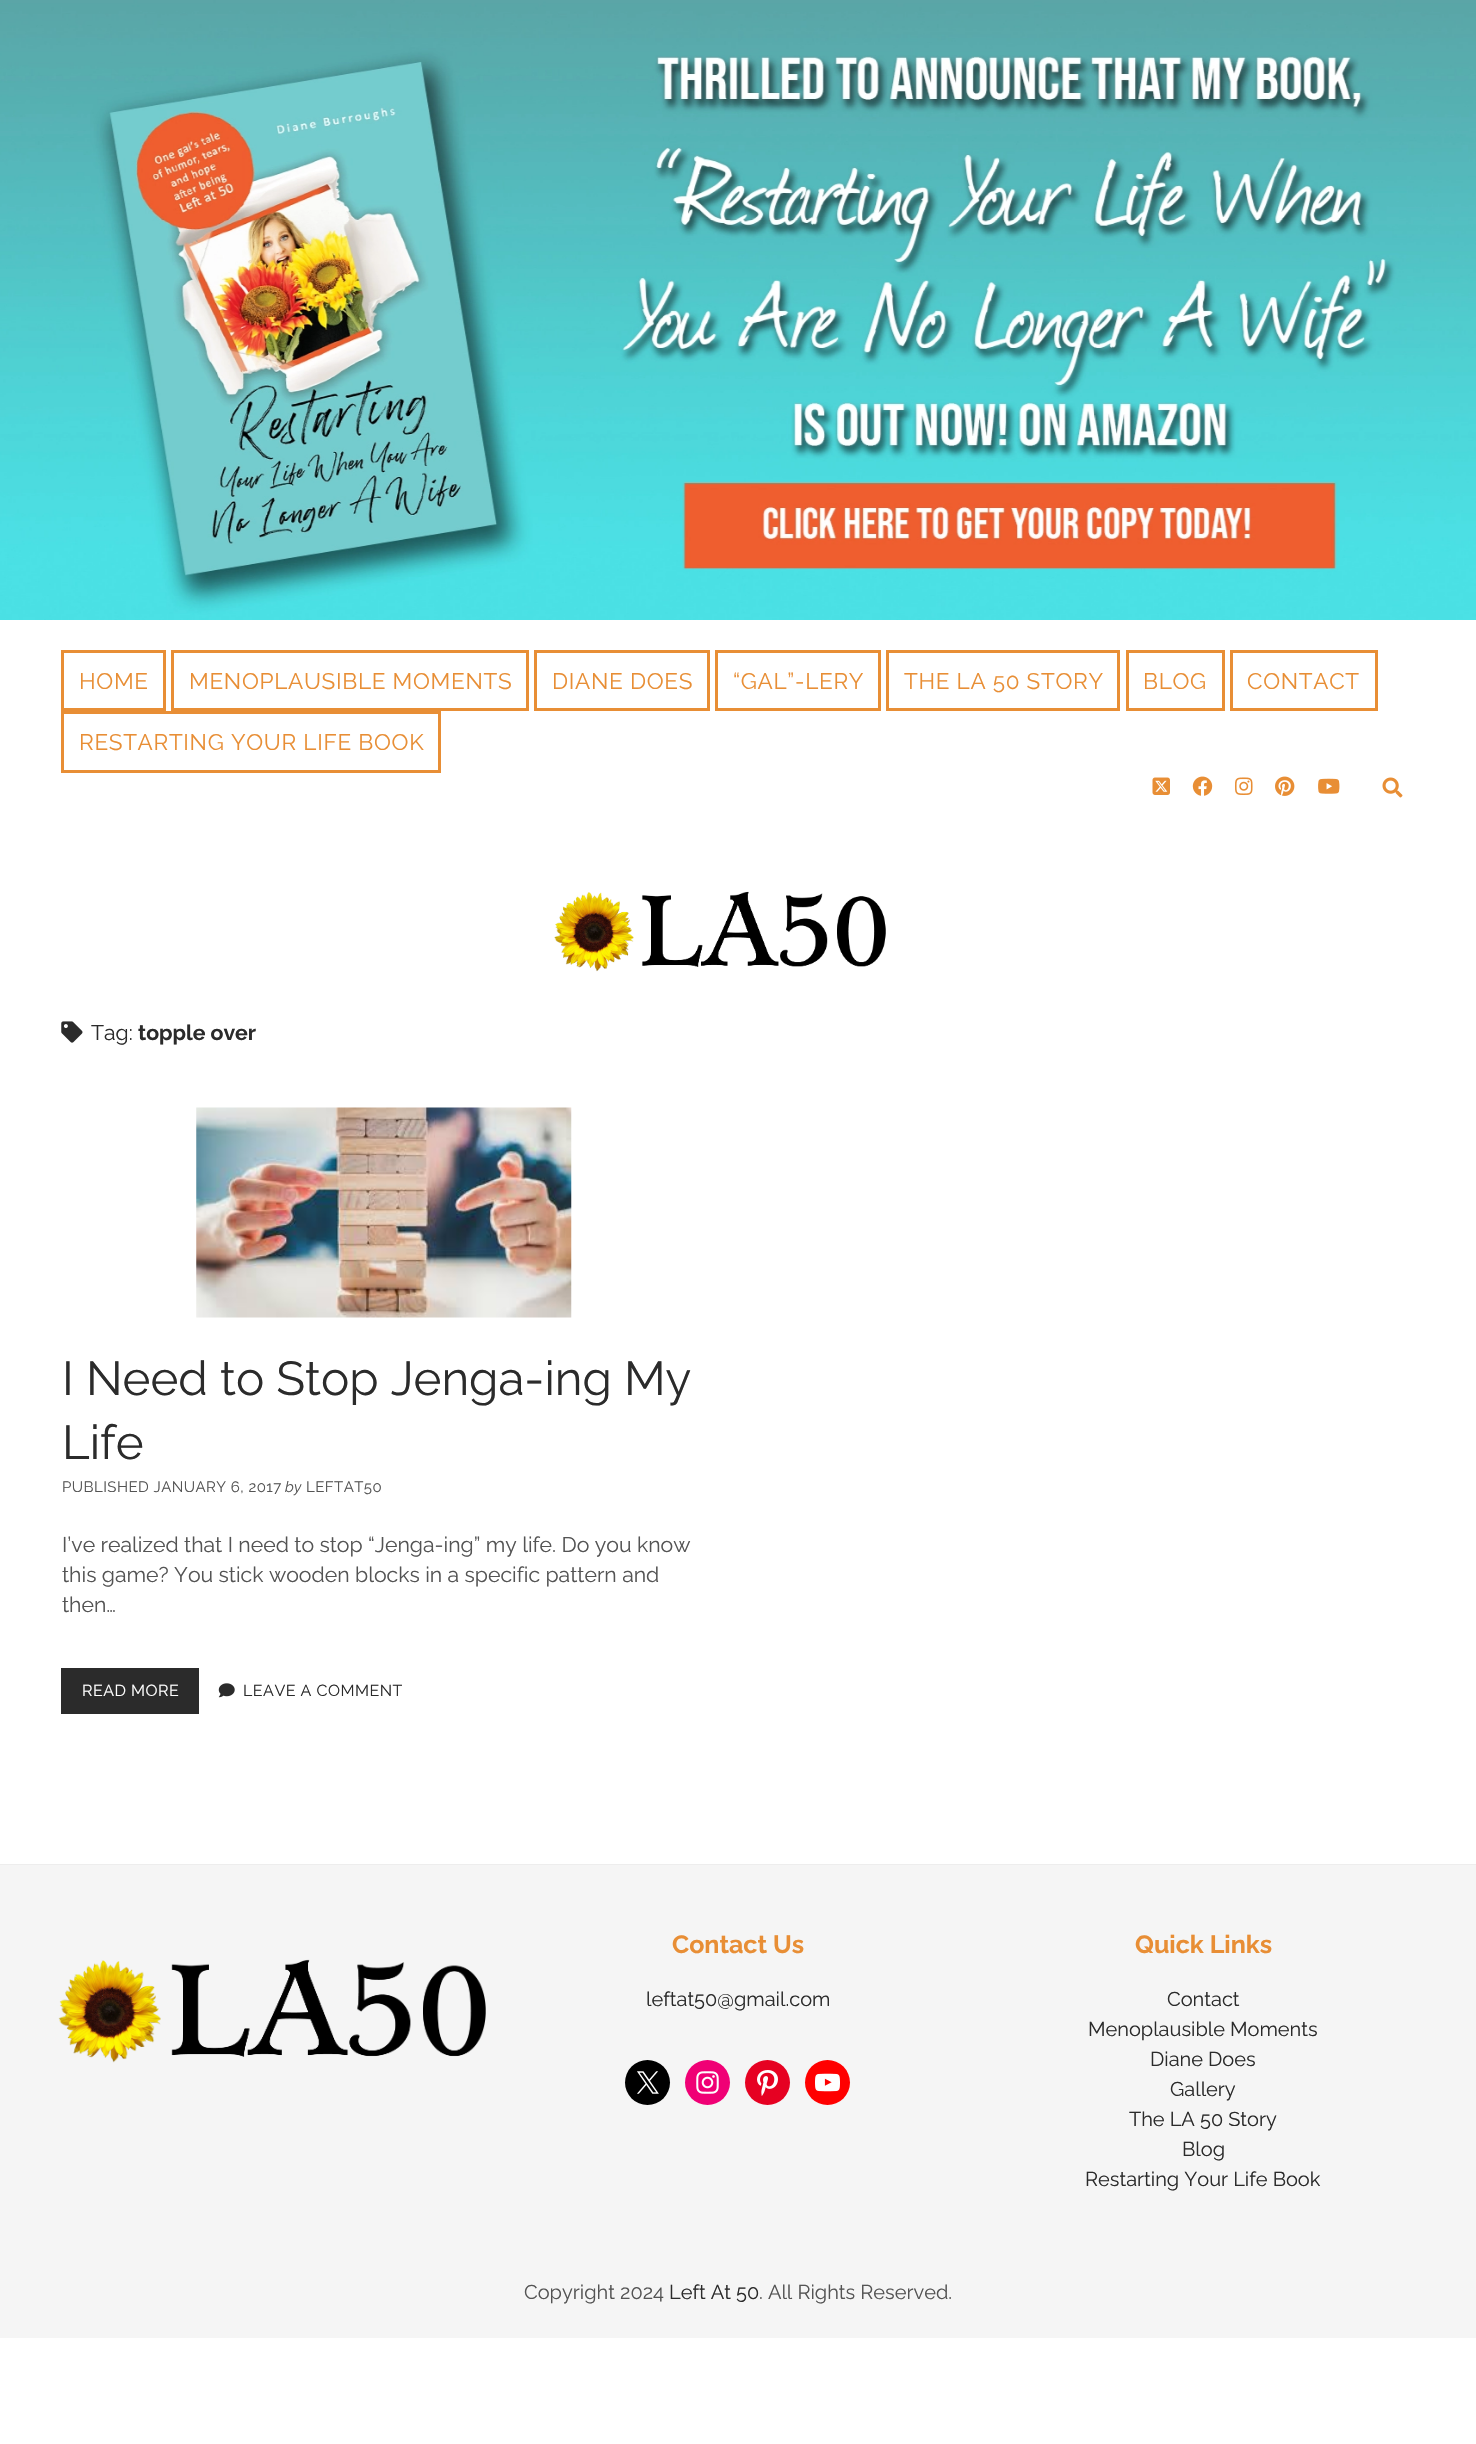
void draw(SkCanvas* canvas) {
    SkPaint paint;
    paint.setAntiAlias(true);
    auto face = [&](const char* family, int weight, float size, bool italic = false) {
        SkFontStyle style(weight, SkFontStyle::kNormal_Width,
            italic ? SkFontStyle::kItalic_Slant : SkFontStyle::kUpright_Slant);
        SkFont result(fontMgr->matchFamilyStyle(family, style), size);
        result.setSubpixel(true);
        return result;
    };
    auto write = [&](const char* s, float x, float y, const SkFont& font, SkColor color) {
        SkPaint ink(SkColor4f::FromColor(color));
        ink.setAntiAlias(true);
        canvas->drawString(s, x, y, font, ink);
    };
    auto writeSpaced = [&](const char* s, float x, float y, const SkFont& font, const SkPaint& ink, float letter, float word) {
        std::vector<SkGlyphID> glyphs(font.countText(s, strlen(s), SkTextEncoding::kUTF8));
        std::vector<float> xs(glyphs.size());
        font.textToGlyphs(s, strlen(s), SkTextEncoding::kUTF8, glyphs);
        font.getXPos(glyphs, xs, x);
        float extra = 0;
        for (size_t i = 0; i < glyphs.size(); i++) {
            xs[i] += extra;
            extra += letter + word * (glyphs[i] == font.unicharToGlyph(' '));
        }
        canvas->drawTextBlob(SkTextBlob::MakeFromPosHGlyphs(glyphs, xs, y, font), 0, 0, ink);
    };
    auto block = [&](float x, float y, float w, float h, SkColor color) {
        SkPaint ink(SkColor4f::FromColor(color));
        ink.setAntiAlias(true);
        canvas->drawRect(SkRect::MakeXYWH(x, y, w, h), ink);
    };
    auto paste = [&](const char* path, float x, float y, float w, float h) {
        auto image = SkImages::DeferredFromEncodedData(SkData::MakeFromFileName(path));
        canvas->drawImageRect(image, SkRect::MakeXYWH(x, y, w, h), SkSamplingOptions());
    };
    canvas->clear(SK_ColorWHITE);
    paste("pic1.png", 0, 0, 1476, 620);
    paint.setStyle(SkPaint::kStroke_Style);
    paint.setStrokeWidth(3);
    paint.setColor(SkColorSetRGB(232, 142, 53));
    canvas->drawRect(SkRect::MakeXYWH(62.5f, 651.5f, 102, 58), paint);
    auto kFont1 = face("Raleway", 100, 22.5f);
    paint.setStyle(SkPaint::kFill_Style);
    writeSpaced("HOME", 79, 689, kFont1, paint, 0.7f, 0);
    paint.setStyle(SkPaint::kStroke_Style);
    canvas->drawRect(SkRect::MakeXYWH(172.5f, 651.5f, 355, 58), paint);
    paint.setStyle(SkPaint::kFill_Style);
    writeSpaced("MENOPLAUSIBLE MOMENTS", 189, 689, kFont1, paint, 0.7f, 0);
    paint.setStyle(SkPaint::kStroke_Style);
    canvas->drawRect(SkRect::MakeXYWH(535.5f, 651.5f, 173, 58), paint);
    paint.setStyle(SkPaint::kFill_Style);
    writeSpaced("DIANE DOES", 552, 689, kFont1, paint, 0.7f, 0);
    paint.setStyle(SkPaint::kStroke_Style);
    canvas->drawRect(SkRect::MakeXYWH(716.5f, 651.5f, 163, 58), paint);
    paint.setStyle(SkPaint::kFill_Style);
    writeSpaced("“GAL”-LERY", 733, 689, kFont1, paint, 0.7f, 0);
    paint.setStyle(SkPaint::kStroke_Style);
    canvas->drawRect(SkRect::MakeXYWH(887.5f, 651.5f, 231, 58), paint);
    paint.setStyle(SkPaint::kFill_Style);
    writeSpaced("THE LA 50 STORY", 904, 689, kFont1, paint, 0.7f, 0);
    paint.setStyle(SkPaint::kStroke_Style);
    canvas->drawRect(SkRect::MakeXYWH(1127.5f, 651.5f, 96, 58), paint);
    paint.setStyle(SkPaint::kFill_Style);
    writeSpaced("BLOG", 1143, 689, kFont1, paint, 0.7f, 0);
    paint.setStyle(SkPaint::kStroke_Style);
    canvas->drawRect(SkRect::MakeXYWH(1231.5f, 651.5f, 145, 58), paint);
    paint.setStyle(SkPaint::kFill_Style);
    writeSpaced("CONTACT", 1247, 689, kFont1, paint, 0.7f, 0);
    paint.setStyle(SkPaint::kStroke_Style);
    canvas->drawRect(SkRect::MakeXYWH(62.5f, 712.5f, 377, 59), paint);
    paint.setStyle(SkPaint::kFill_Style);
    writeSpaced("RESTARTING YOUR LIFE BOOK", 79, 750, kFont1, paint, 0.7f, 0);
    paste("pic2.png", 1152, 777, 18, 18);
    paste("pic3.png", 1192, 776, 21, 20);
    paste("pic4.png", 1235, 777, 18, 18);
    paste("pic5.png", 1275, 776, 20, 20);
    paste("pic6.png", 1318, 778, 22, 16);
    paste("pic7.png", 1382, 777, 21, 21);
    paste("pic8.png", 554, 891, 332, 81);
    paste("pic9.png", 61, 1021, 22, 22);
    auto kFont2 = face("Raleway", 100, 21.25f);
    write("Tag:", 91, 1040, kFont2, SkColorSetRGB(43, 43, 43));
    auto kFont3 = face("Raleway", 700, 21.25f);
    write("topple over", 138, 1040, kFont3, SkColorSetRGB(43, 43, 43));
    paste("pic10.png", 196, 1107, 376, 211);
    auto kFont4 = face("Raleway", 100, 47.5f);
    write("I Need to Stop Jenga-ing My", 62, 1395, kFont4, SkColorSetRGB(43, 43, 43));
    write("Life", 62, 1459, kFont4, SkColorSetRGB(43, 43, 43));
    auto kFont5 = face("Raleway", 100, 15);
    paint.setColor(SkColorSetRGB(84, 84, 84));
    writeSpaced("PUBLISHED JANUARY 6, 2017", 62, 1492, kFont5, paint, 0.45f, 0);
    auto kFont6 = face("Raleway", 100, 15, true);
    write("by", 285, 1492, kFont6, SkColorSetRGB(84, 84, 84));
    writeSpaced("LEFTAT50", 306, 1492, kFont5, paint, 0.45f, 0);
    write("I’ve realized that I need to stop “Jenga-ing” my life. Do you know", 62, 1552, kFont2, SkColorSetRGB(84, 84, 84));
    write("this game? You stick wooden blocks in a specific pattern and", 62, 1582, kFont2, SkColorSetRGB(84, 84, 84));
    write("then…", 62, 1612, kFont2, SkColorSetRGB(84, 84, 84));
    block(61, 1668, 138, 46, SkColorSetRGB(43, 43, 43));
    auto kFont7 = face("Raleway", 100, 16);
    paint.setColor(SK_ColorWHITE);
    writeSpaced("READ MORE", 82, 1696, kFont7, paint, 0.5f, 0);
    paste("pic11.png", 218, 1683, 17, 15);
    paint.setColor(SkColorSetRGB(43, 43, 43));
    writeSpaced("LEAVE A COMMENT", 243, 1696, kFont7, paint, 0.5f, 0);
    block(0, 1865, 1476, 473, SkColorSetRGB(245, 245, 245));
    block(0, 1864, 1476, 1, SkColorSetRGB(237, 237, 237));
    paste("pic12.png", 58, 1959, 428, 104);
    auto kFont8 = face("Raleway", 700, 25);
    write("Contact Us", 672, 1953, kFont8, SkColorSetRGB(232, 142, 53));
    auto kFont9 = face("Raleway", 100, 20);
    write("leftat50@gmail.com", 646, 2006, kFont9, SkColorSetRGB(43, 43, 43));
    paint.setColor(SK_ColorBLACK);
    canvas->drawCircle(647.5f, 2082.5f, 22.5f, paint);
    paste("pic13.png", 637, 2071, 22, 23);
    paint.setColor(SkColorSetRGB(240, 0, 117));
    canvas->drawCircle(707.5f, 2082.5f, 22.5f, paint);
    paste("pic14.png", 696, 2071, 23, 23);
    paint.setColor(SkColorSetRGB(230, 1, 34));
    canvas->drawCircle(767.5f, 2082.5f, 22.5f, paint);
    paste("pic15.png", 757, 2070, 21, 26);
    paint.setColor(SkColorSetRGB(255, 0, 0));
    canvas->drawCircle(827.5f, 2082.5f, 22.5f, paint);
    paste("pic16.png", 815, 2073, 25, 19);
    write("Quick Links", 1135, 1953, kFont8, SkColorSetRGB(232, 142, 53));
    write("Contact", 1167, 2006, kFont9, SkColorSetRGB(43, 43, 43));
    write("Menoplausible Moments", 1088, 2036, kFont9, SkColorSetRGB(43, 43, 43));
    write("Diane Does", 1150, 2066, kFont9, SkColorSetRGB(43, 43, 43));
    write("Gallery", 1170, 2096, kFont9, SkColorSetRGB(43, 43, 43));
    write("The LA 50 Story", 1129, 2126, kFont9, SkColorSetRGB(43, 43, 43));
    write("Blog", 1182, 2156, kFont9, SkColorSetRGB(43, 43, 43));
    write("Restarting Your Life Book", 1085, 2186, kFont9, SkColorSetRGB(43, 43, 43));
    write("Copyright 2024", 524, 2299, kFont9, SkColorSetRGB(84, 84, 84));
    write("Left At 50", 669, 2299, kFont9, SkColorSetRGB(43, 43, 43));
    write(". All Rights Reserved.", 759, 2299, kFont9, SkColorSetRGB(84, 84, 84));
}
